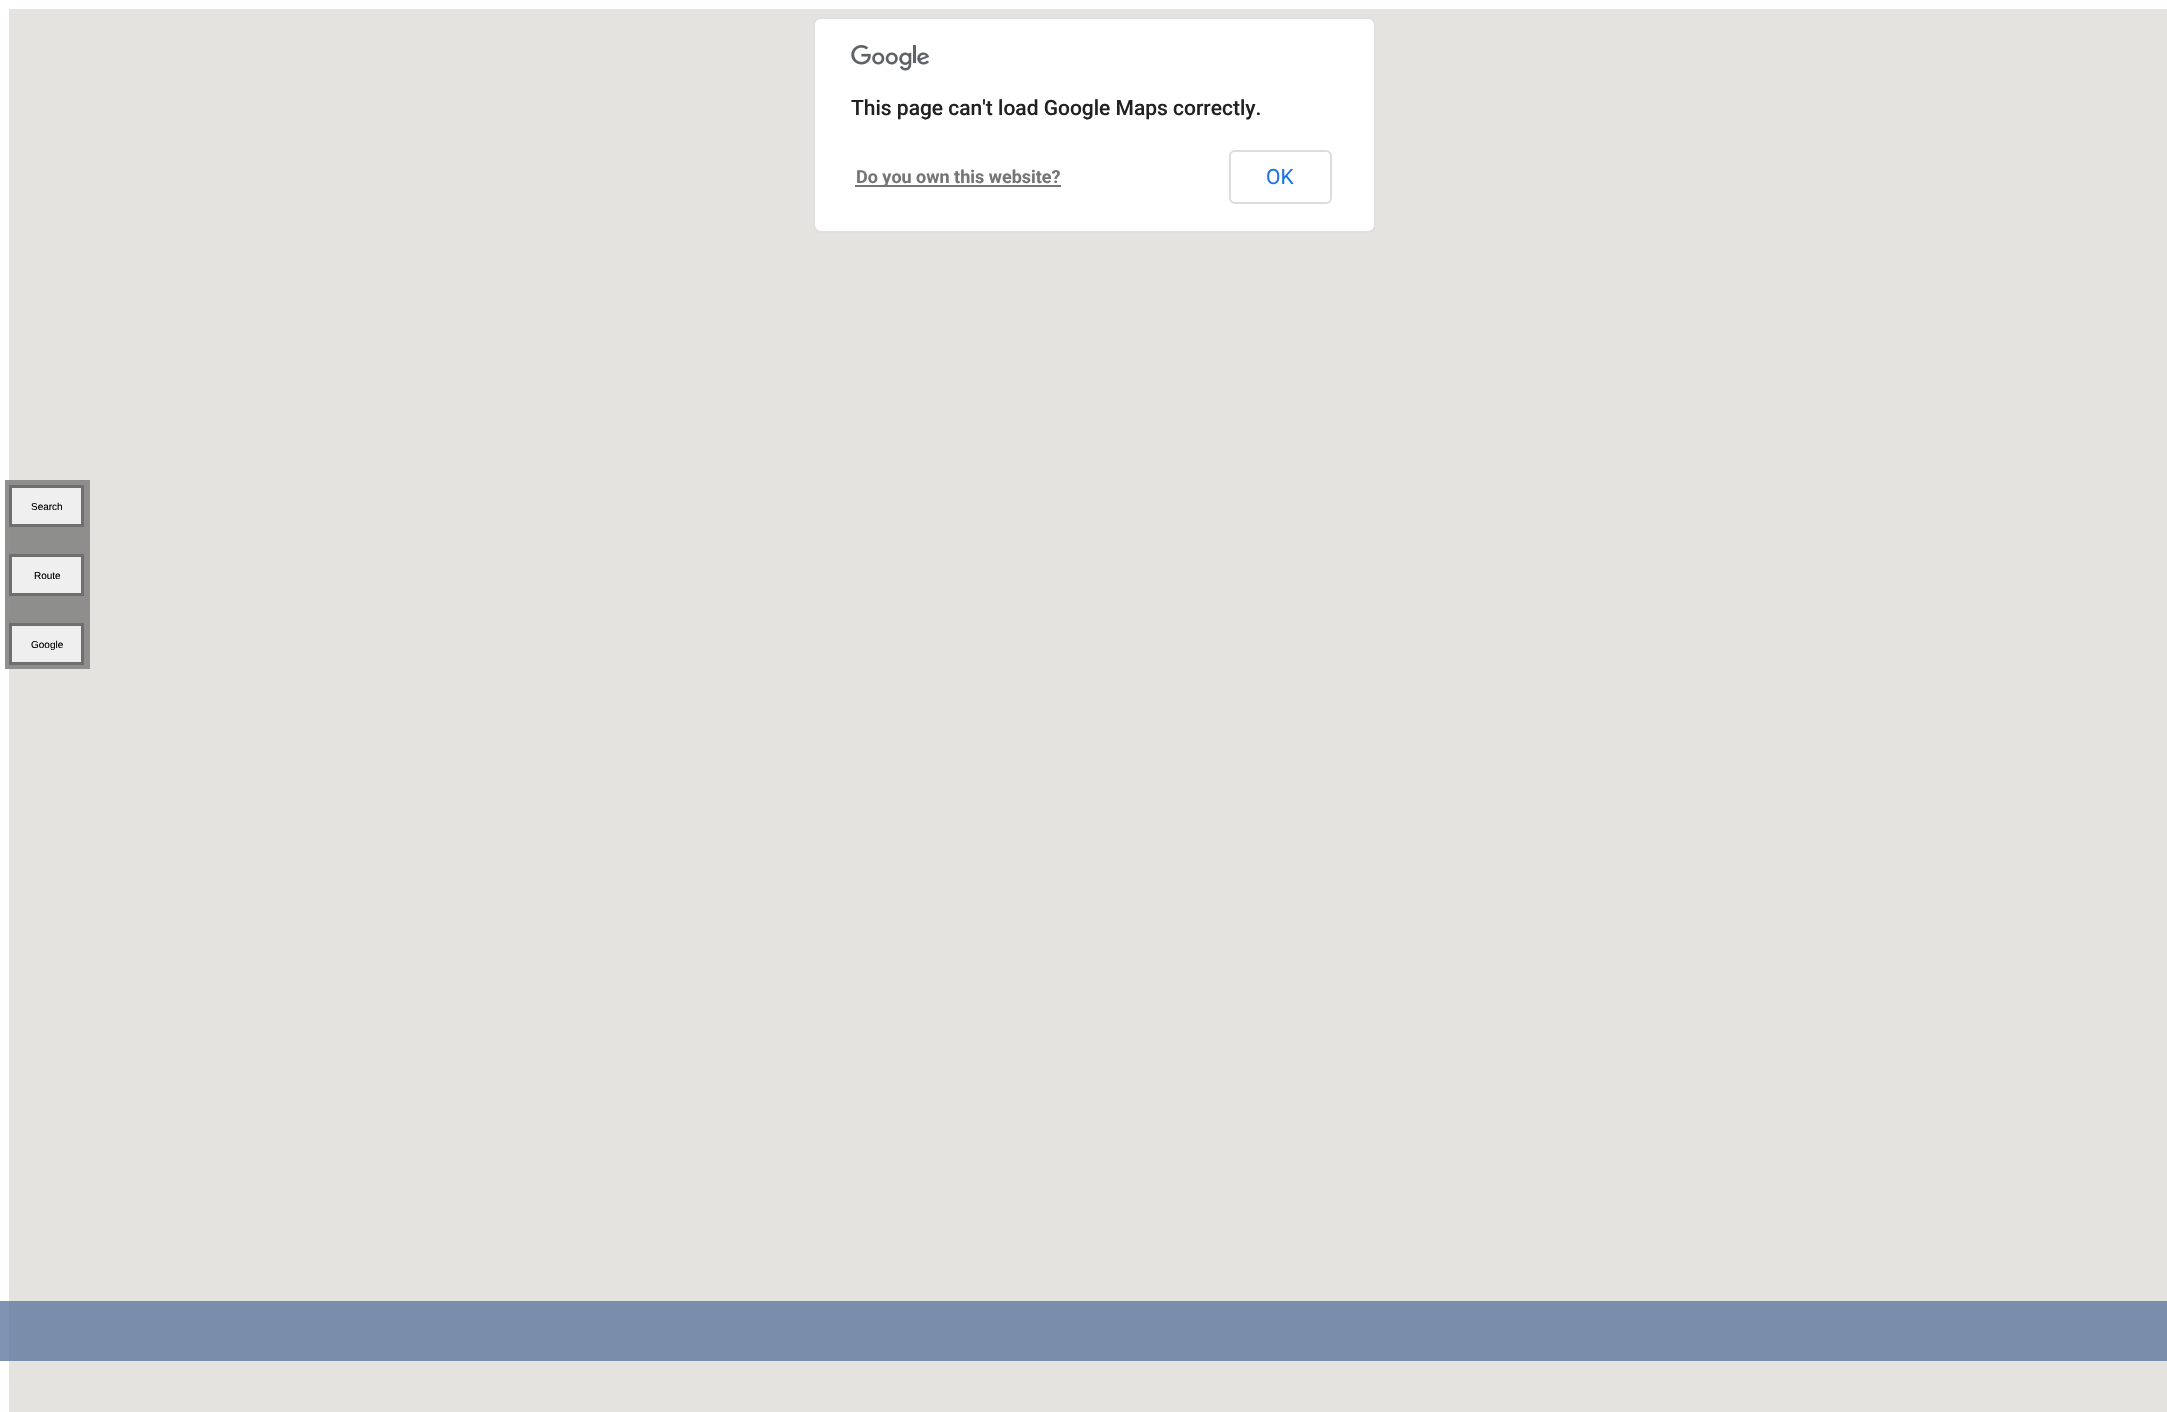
void draw(SkCanvas* canvas) {
    SkPaint paint;
    paint.setAntiAlias(true);
    auto face = [&](const char* family, int weight, float size, bool italic = false) {
        SkFontStyle style(weight, SkFontStyle::kNormal_Width,
            italic ? SkFontStyle::kItalic_Slant : SkFontStyle::kUpright_Slant);
        SkFont result(fontMgr->matchFamilyStyle(family, style), size);
        result.setSubpixel(true);
        return result;
    };
    auto write = [&](const char* s, float x, float y, const SkFont& font, SkColor color) {
        SkPaint ink(SkColor4f::FromColor(color));
        ink.setAntiAlias(true);
        canvas->drawString(s, x, y, font, ink);
    };
    auto block = [&](float x, float y, float w, float h, SkColor color) {
        SkPaint ink(SkColor4f::FromColor(color));
        ink.setAntiAlias(true);
        canvas->drawRect(SkRect::MakeXYWH(x, y, w, h), ink);
    };
    auto card = [&](float x, float y, float w, float h, float radius, SkColor color) {
        SkPaint ink(SkColor4f::FromColor(color));
        ink.setAntiAlias(true);
        canvas->drawRoundRect(SkRect::MakeXYWH(x, y, w, h), radius, radius, ink);
    };
    auto paste = [&](const char* path, float x, float y, float w, float h) {
        auto image = SkImages::DeferredFromEncodedData(SkData::MakeFromFileName(path));
        canvas->drawImageRect(image, SkRect::MakeXYWH(x, y, w, h), SkSamplingOptions());
    };
    canvas->clear(SK_ColorWHITE);
    block(0, 1301, 9, 60, SkColorSetRGB(127, 148, 178));
    block(5, 480, 4, 189, SkColorSetRGB(144, 144, 144));
    block(9, 9, 2158, 1403, SkColorSetRGB(229, 227, 223));
    block(9, 1301, 2158, 60, SkColorSetRGB(122, 142, 172));
    block(9, 480, 81, 189, SkColorSetRGB(142, 142, 141));
    card(813, 17, 563, 216, 8, SK_ColorWHITE);
    paint.setStyle(SkPaint::kStroke_Style);
    paint.setStrokeWidth(2);
    paint.setColor(SkColorSetARGB(31, 0, 0, 0));
    canvas->drawRoundRect(SkRect::MakeXYWH(814, 18, 561, 214), 7, 7, paint);
    paste("pic1.png", 851, 45, 78, 26);
    auto kFont1 = face("Roboto", 500, 21);
    write("This page can't load Google Maps correctly.", 851, 115, kFont1, SkColorSetRGB(33, 33, 33));
    block(855, 185, 206, 2, SkColorSetRGB(117, 117, 117));
    auto kFont2 = face("Roboto", 700, 18);
    write("Do you own this website?", 856, 183, kFont2, SkColorSetRGB(117, 117, 117));
    paint.setColor(SkColorSetRGB(218, 220, 224));
    canvas->drawRoundRect(SkRect::MakeXYWH(1230, 151, 101, 52), 5, 5, paint);
    auto kFont3 = face("Roboto", 400, 21);
    write("OK", 1266, 184, kFont3, SkColorSetRGB(26, 115, 232));
    paint.setStyle(SkPaint::kFill_Style);
    paint.setColor(SkColorSetRGB(239, 239, 239));
    canvas->drawRect(SkRect::MakeXYWH(10.5f, 486.5f, 72, 39), paint);
    paint.setStyle(SkPaint::kStroke_Style);
    paint.setStrokeWidth(3);
    paint.setColor(SkColorSetRGB(111, 111, 110));
    canvas->drawRect(SkRect::MakeXYWH(10.5f, 486.5f, 72, 39), paint);
    auto kFont4 = face("Liberation Sans", 400, 10);
    write("Search", 31, 510, kFont4, SK_ColorBLACK);
    paint.setStyle(SkPaint::kFill_Style);
    paint.setColor(SkColorSetRGB(239, 239, 239));
    canvas->drawRect(SkRect::MakeXYWH(10.5f, 555.5f, 72, 39), paint);
    paint.setStyle(SkPaint::kStroke_Style);
    paint.setColor(SkColorSetRGB(111, 111, 110));
    canvas->drawRect(SkRect::MakeXYWH(10.5f, 555.5f, 72, 39), paint);
    write("Route", 34, 579, kFont4, SK_ColorBLACK);
    paint.setStyle(SkPaint::kFill_Style);
    paint.setColor(SkColorSetRGB(239, 239, 239));
    canvas->drawRect(SkRect::MakeXYWH(10.5f, 624.5f, 72, 39), paint);
    paint.setStyle(SkPaint::kStroke_Style);
    paint.setColor(SkColorSetRGB(111, 111, 110));
    canvas->drawRect(SkRect::MakeXYWH(10.5f, 624.5f, 72, 39), paint);
    write("Google", 31, 648, kFont4, SK_ColorBLACK);
}
